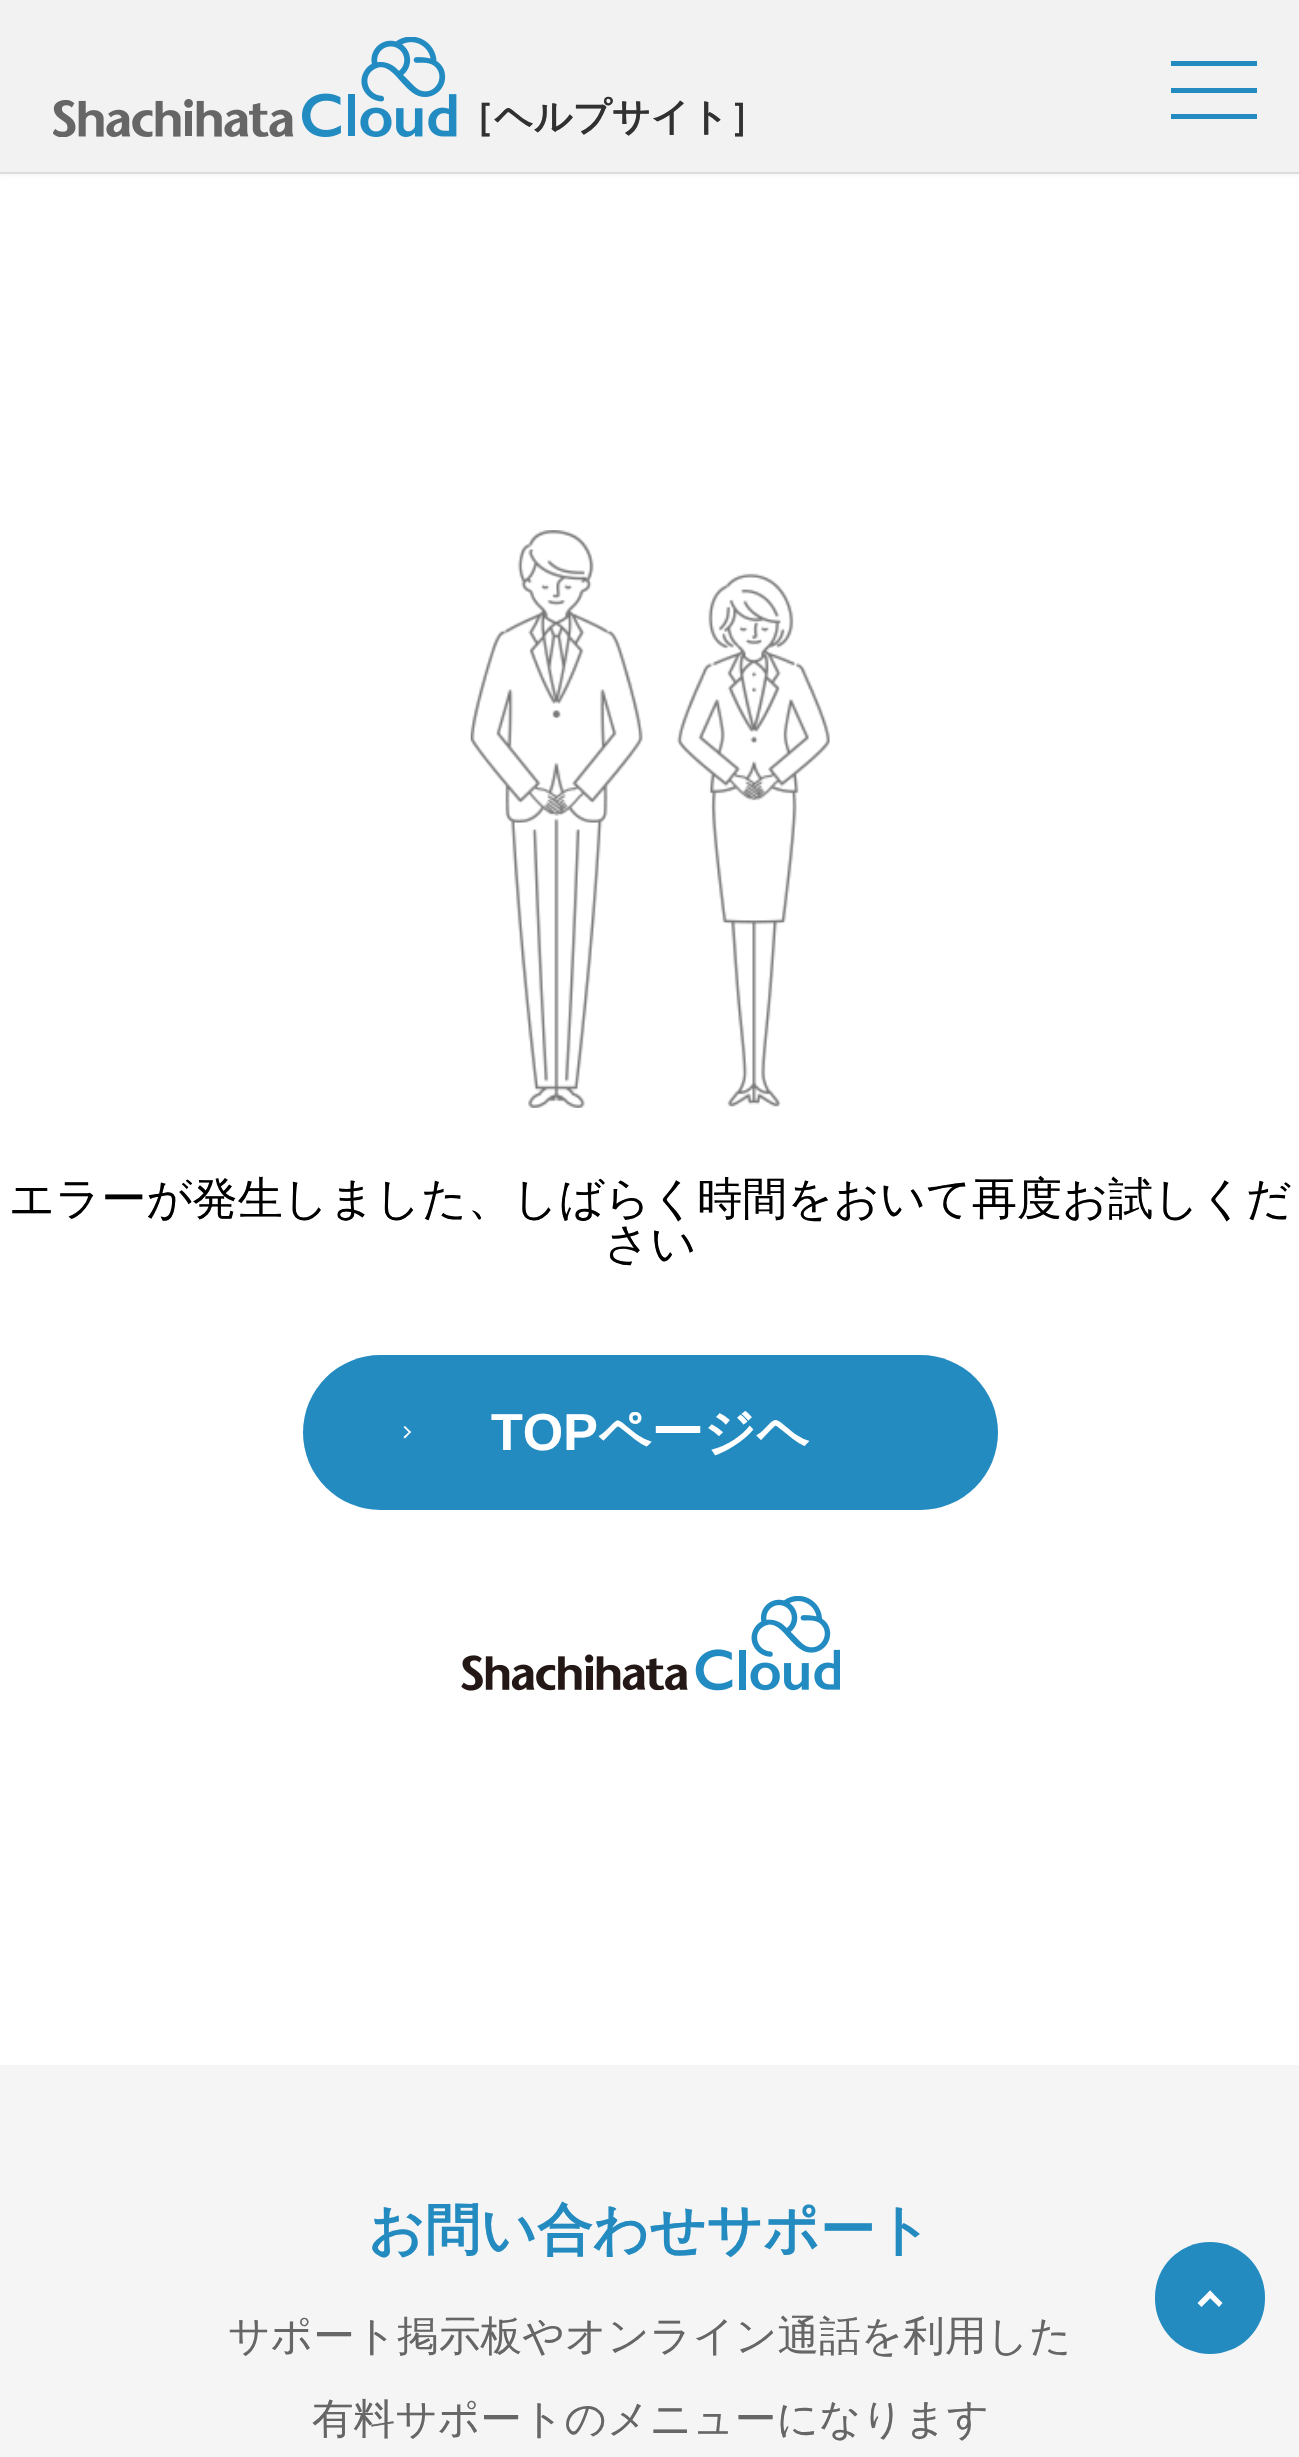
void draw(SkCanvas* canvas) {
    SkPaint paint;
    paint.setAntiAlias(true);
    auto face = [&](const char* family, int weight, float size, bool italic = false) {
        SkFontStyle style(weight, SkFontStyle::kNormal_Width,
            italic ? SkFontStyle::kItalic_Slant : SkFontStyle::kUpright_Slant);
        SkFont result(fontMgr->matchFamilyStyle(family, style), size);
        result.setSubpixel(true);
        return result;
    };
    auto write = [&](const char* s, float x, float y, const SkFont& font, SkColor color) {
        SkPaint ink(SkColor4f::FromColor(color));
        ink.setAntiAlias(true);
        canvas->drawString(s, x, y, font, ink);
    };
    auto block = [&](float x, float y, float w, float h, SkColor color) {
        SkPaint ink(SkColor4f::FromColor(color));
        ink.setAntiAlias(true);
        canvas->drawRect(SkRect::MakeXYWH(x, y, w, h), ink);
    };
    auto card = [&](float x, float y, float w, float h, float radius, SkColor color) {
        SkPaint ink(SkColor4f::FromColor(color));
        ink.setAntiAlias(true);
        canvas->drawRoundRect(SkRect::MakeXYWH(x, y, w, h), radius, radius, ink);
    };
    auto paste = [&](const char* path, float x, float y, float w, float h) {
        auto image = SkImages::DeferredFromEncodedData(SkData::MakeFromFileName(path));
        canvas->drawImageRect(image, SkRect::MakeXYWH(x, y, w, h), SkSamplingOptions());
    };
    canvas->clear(SK_ColorWHITE);
    paint.setColor(SkColorSetARGB(26, 0, 0, 0));
    paint.setMaskFilter(SkMaskFilter::MakeBlur(kNormal_SkBlurStyle, 2.5f));
    canvas->drawRect(SkRect::MakeXYWH(0, 0, 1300, 173), paint);
    paint.setMaskFilter(nullptr);
    block(0, 0, 1299, 172, SkColorSetRGB(242, 242, 242));
    block(0, 172, 1299, 2, SkColorSetRGB(220, 220, 220));
    paste("pic1.png", 53, 37, 404, 100);
    auto kFont1 = face("WenQuanYi Zen Hei", 700, 38.25f);
    write("［ヘルプサイト］", 456, 130, kFont1, SkColorSetRGB(49, 49, 49));
    block(1171, 61, 86, 5, SkColorSetRGB(36, 139, 193));
    block(1171, 88, 86, 5, SkColorSetRGB(36, 139, 193));
    block(1171, 114, 86, 5, SkColorSetRGB(36, 139, 193));
    paste("pic2.png", 470, 530, 360, 578);
    auto kFont2 = face("WenQuanYi Zen Hei", 500, 45.1f);
    write("エラーが発生しました、しばらく時間をおいて再度お試しくだ", 9, 1214, kFont2, SK_ColorBLACK);
    write("さい", 604, 1259, kFont2, SK_ColorBLACK);
    card(303, 1355, 695, 155, 77.5f, SkColorSetRGB(36, 139, 193));
    paint.setColor(SK_ColorWHITE);
    canvas->drawPath(SkPathBuilder().moveTo(405, 1426).lineTo(411, 1432).lineTo(410, 1433.5f).lineTo(403.5f, 1427).close().detach(), paint);
    canvas->drawPath(SkPathBuilder().moveTo(410, 1431).lineTo(411, 1432).lineTo(405, 1438.5f).lineTo(403.5f, 1437).close().detach(), paint);
    auto kFont3 = face("Liberation Sans", 700, 52);
    write("TOP", 491, 1450, kFont3, SK_ColorWHITE);
    auto kFont4 = face("WenQuanYi Zen Hei", 700, 52);
    write("ページヘ", 598, 1450, kFont4, SK_ColorWHITE);
    paste("pic3.png", 461, 1596, 379, 95);
    block(0, 2065, 1299, 392, SkColorSetRGB(245, 245, 245));
    auto kFont5 = face("WenQuanYi Zen Hei", 700, 55.5f);
    write("お問い合わせサポート", 368, 2249, kFont5, SkColorSetRGB(36, 139, 193));
    auto kFont6 = face("WenQuanYi Zen Hei", 500, 41.6f);
    write("サポート掲示板やオンライン通話を利用した", 228, 2350, kFont6, SkColorSetRGB(102, 102, 102));
    write("有料サポートのメニューになります", 312, 2433, kFont6, SkColorSetRGB(102, 102, 102));
    card(1155, 2242, 110, 112, 55, SkColorSetRGB(36, 139, 193));
    canvas->drawPath(SkPathBuilder().moveTo(1210, 2290.5f).lineTo(1222.5f, 2303).lineTo(1219, 2307).lineTo(1206.5f, 2294.5f).close().detach(), paint);
    canvas->drawPath(SkPathBuilder().moveTo(1210, 2290.5f).lineTo(1214, 2294.5f).lineTo(1201.5f, 2307).lineTo(1197.5f, 2303).close().detach(), paint);
}
